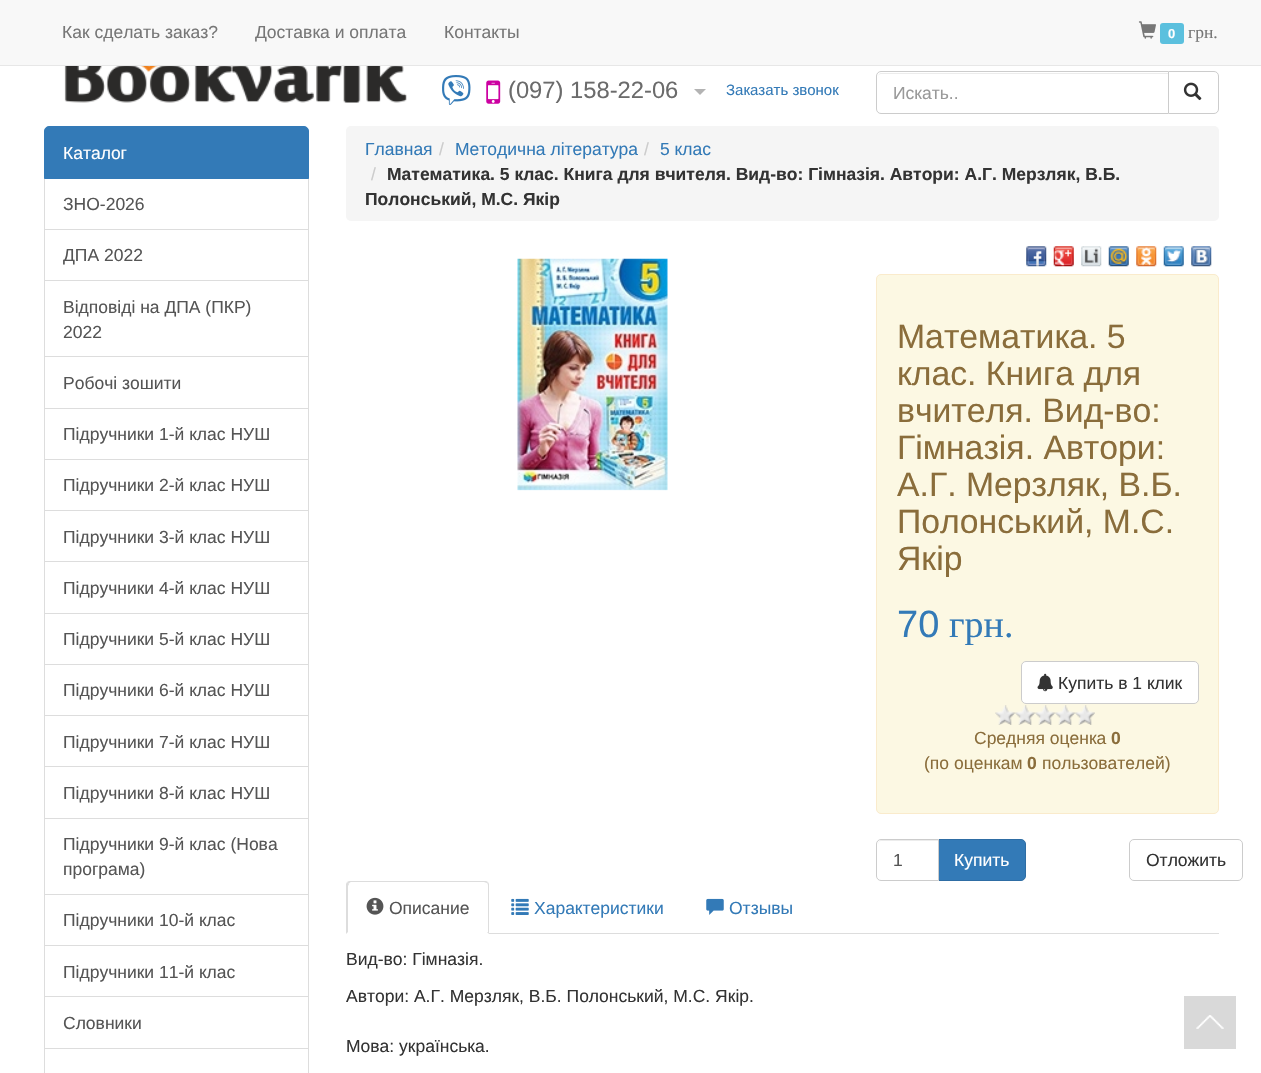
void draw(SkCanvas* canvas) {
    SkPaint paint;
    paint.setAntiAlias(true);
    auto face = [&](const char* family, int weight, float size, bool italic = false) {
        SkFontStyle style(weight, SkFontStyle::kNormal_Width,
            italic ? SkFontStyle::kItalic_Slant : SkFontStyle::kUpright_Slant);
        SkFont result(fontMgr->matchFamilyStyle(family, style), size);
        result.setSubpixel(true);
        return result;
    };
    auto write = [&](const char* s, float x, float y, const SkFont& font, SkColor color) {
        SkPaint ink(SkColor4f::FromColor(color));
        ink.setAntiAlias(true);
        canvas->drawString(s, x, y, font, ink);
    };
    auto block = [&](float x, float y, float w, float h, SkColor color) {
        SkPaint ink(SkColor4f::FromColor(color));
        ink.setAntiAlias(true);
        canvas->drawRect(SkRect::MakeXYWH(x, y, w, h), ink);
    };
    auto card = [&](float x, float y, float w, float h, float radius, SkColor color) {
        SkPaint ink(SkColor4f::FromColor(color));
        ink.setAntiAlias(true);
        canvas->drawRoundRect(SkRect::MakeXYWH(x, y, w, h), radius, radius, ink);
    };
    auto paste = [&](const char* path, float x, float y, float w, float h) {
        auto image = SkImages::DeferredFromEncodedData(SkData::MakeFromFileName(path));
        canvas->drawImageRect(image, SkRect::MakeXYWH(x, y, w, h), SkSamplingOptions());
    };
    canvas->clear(SK_ColorWHITE);
    block(0, 0, 1261, 65, SkColorSetRGB(248, 248, 248));
    block(0, 65, 1261, 1, SkColorSetRGB(231, 231, 231));
    auto kFont1 = face("Liberation Sans", 400, 17.5f);
    write("Как сделать заказ?", 62, 38, kFont1, SkColorSetRGB(119, 119, 119));
    write("Доставка и оплата", 255, 38, kFont1, SkColorSetRGB(119, 119, 119));
    write("Контакты", 444, 38, kFont1, SkColorSetRGB(119, 119, 119));
    paste("pic1.png", 1138, 21, 18, 18);
    card(1160, 23, 24, 21, 3, SkColorSetRGB(91, 192, 222));
    auto kFont2 = face("Liberation Sans", 700, 13);
    write("0", 1168, 38, kFont2, SK_ColorWHITE);
    auto kFont3 = face("Liberation Serif", 400, 17.5f);
    write("грн.", 1188, 38, kFont3, SkColorSetRGB(119, 119, 119));
    paste("pic2.png", 64, 66, 343, 37);
    paste("pic3.png", 442, 75, 29, 30);
    paste("pic4.png", 486, 80, 15, 24);
    auto kFont4 = face("Liberation Sans", 400, 23.75f);
    write("(097) 158-22-06", 508, 98, kFont4, SkColorSetRGB(107, 107, 107));
    paint.setColor(SkColorSetRGB(179, 179, 179));
    canvas->drawPath(SkPathBuilder().moveTo(694, 89).lineTo(706, 89).lineTo(700, 95).close().detach(), paint);
    auto kFont5 = face("Liberation Sans", 400, 15);
    write("Заказать звонок", 726, 95, kFont5, SkColorSetRGB(51, 122, 183));
    paint.setStyle(SkPaint::kStroke_Style);
    paint.setStrokeWidth(1);
    paint.setColor(SkColorSetRGB(204, 204, 204));
    canvas->drawPath(SkPathBuilder().moveTo(1168.5f, 71.5f).lineTo(1214, 71.5f).cubicTo(1216.5f, 71.5f, 1218.5f, 73.5f, 1218.5f, 76).lineTo(1218.5f, 109).cubicTo(1218.5f, 111.5f, 1216.5f, 113.5f, 1214, 113.5f).lineTo(1168.5f, 113.5f).close().detach(), paint);
    paint.setStyle(SkPaint::kFill_Style);
    paint.setColor(SK_ColorWHITE);
    canvas->drawPath(SkPathBuilder().moveTo(881, 71).lineTo(1169, 71).lineTo(1169, 114).lineTo(881, 114).cubicTo(878, 114, 876, 112, 876, 109).lineTo(876, 76).cubicTo(876, 73, 878, 71, 881, 71).close().detach(), paint);
    paint.setColor(SkColorSetRGB(236, 236, 236));
    canvas->drawPath(SkPathBuilder().moveTo(881, 74).lineTo(1168, 74).lineTo(1168, 73).lineTo(882, 73).cubicTo(879, 73, 878, 75, 878, 78).cubicTo(878, 75, 879, 74, 881, 74).close().detach(), paint);
    paint.setStyle(SkPaint::kStroke_Style);
    paint.setColor(SkColorSetRGB(204, 204, 204));
    canvas->drawPath(SkPathBuilder().moveTo(881, 71.5f).lineTo(1168.5f, 71.5f).lineTo(1168.5f, 113.5f).lineTo(881, 113.5f).cubicTo(878.5f, 113.5f, 876.5f, 111.5f, 876.5f, 109).lineTo(876.5f, 76).cubicTo(876.5f, 73.5f, 878.5f, 71.5f, 881, 71.5f).close().detach(), paint);
    write("Искать..", 893, 99, kFont1, SkColorSetRGB(153, 153, 153));
    paste("pic5.png", 1183, 82, 19, 19);
    paint.setColor(SkColorSetRGB(221, 221, 221));
    canvas->drawRect(SkRect::MakeXYWH(44.5f, 178.5f, 264, 51), paint);
    paint.setStyle(SkPaint::kFill_Style);
    paint.setColor(SkColorSetRGB(51, 122, 183));
    canvas->drawPath(SkPathBuilder().moveTo(49, 126.5f).lineTo(304, 126.5f).cubicTo(306.5f, 126.5f, 308.5f, 128.5f, 308.5f, 131).lineTo(308.5f, 178.5f).lineTo(44.5f, 178.5f).lineTo(44.5f, 131).cubicTo(44.5f, 128.5f, 46.5f, 126.5f, 49, 126.5f).close().detach(), paint);
    paint.setStyle(SkPaint::kStroke_Style);
    canvas->drawPath(SkPathBuilder().moveTo(49, 126.5f).lineTo(304, 126.5f).cubicTo(306.5f, 126.5f, 308.5f, 128.5f, 308.5f, 131).lineTo(308.5f, 178.5f).lineTo(44.5f, 178.5f).lineTo(44.5f, 131).cubicTo(44.5f, 128.5f, 46.5f, 126.5f, 49, 126.5f).close().detach(), paint);
    write("Каталог", 63, 159, kFont1, SK_ColorWHITE);
    write("ЗНО-2026", 63, 210, kFont1, SkColorSetRGB(85, 85, 85));
    paint.setColor(SkColorSetRGB(221, 221, 221));
    canvas->drawRect(SkRect::MakeXYWH(44.5f, 229.5f, 264, 51), paint);
    write("ДПА 2022", 63, 261, kFont1, SkColorSetRGB(85, 85, 85));
    canvas->drawRect(SkRect::MakeXYWH(44.5f, 280.5f, 264, 77), paint);
    write("Відповіді на ДПА (ПКР)", 63, 313, kFont1, SkColorSetRGB(85, 85, 85));
    write("2022", 63, 338, kFont1, SkColorSetRGB(85, 85, 85));
    block(45, 357, 263, 1, SK_ColorWHITE);
    canvas->drawRect(SkRect::MakeXYWH(44.5f, 356.5f, 264, 52), paint);
    write("Робочі зошити", 63, 389, kFont1, SkColorSetRGB(85, 85, 85));
    canvas->drawRect(SkRect::MakeXYWH(44.5f, 408.5f, 264, 51), paint);
    write("Підручники 1-й клас НУШ", 63, 440, kFont1, SkColorSetRGB(85, 85, 85));
    canvas->drawRect(SkRect::MakeXYWH(44.5f, 459.5f, 264, 51), paint);
    write("Підручники 2-й клас НУШ", 63, 491, kFont1, SkColorSetRGB(85, 85, 85));
    canvas->drawRect(SkRect::MakeXYWH(44.5f, 510.5f, 264, 52), paint);
    write("Підручники 3-й клас НУШ", 63, 543, kFont1, SkColorSetRGB(85, 85, 85));
    block(45, 562, 263, 1, SK_ColorWHITE);
    canvas->drawRect(SkRect::MakeXYWH(44.5f, 561.5f, 264, 52), paint);
    write("Підручники 4-й клас НУШ", 63, 594, kFont1, SkColorSetRGB(85, 85, 85));
    canvas->drawRect(SkRect::MakeXYWH(44.5f, 613.5f, 264, 51), paint);
    write("Підручники 5-й клас НУШ", 63, 645, kFont1, SkColorSetRGB(85, 85, 85));
    canvas->drawRect(SkRect::MakeXYWH(44.5f, 664.5f, 264, 51), paint);
    write("Підручники 6-й клас НУШ", 63, 696, kFont1, SkColorSetRGB(85, 85, 85));
    canvas->drawRect(SkRect::MakeXYWH(44.5f, 715.5f, 264, 52), paint);
    write("Підручники 7-й клас НУШ", 63, 748, kFont1, SkColorSetRGB(85, 85, 85));
    block(45, 767, 263, 1, SK_ColorWHITE);
    canvas->drawRect(SkRect::MakeXYWH(44.5f, 766.5f, 264, 52), paint);
    write("Підручники 8-й клас НУШ", 63, 799, kFont1, SkColorSetRGB(85, 85, 85));
    canvas->drawRect(SkRect::MakeXYWH(44.5f, 818.5f, 264, 76), paint);
    write("Підручники 9-й клас (Нова", 63, 850, kFont1, SkColorSetRGB(85, 85, 85));
    write("програма)", 63, 875, kFont1, SkColorSetRGB(85, 85, 85));
    canvas->drawRect(SkRect::MakeXYWH(44.5f, 894.5f, 264, 51), paint);
    write("Підручники 10-й клас", 63, 926, kFont1, SkColorSetRGB(85, 85, 85));
    canvas->drawRect(SkRect::MakeXYWH(44.5f, 945.5f, 264, 52), paint);
    write("Підручники 11-й клас", 63, 978, kFont1, SkColorSetRGB(85, 85, 85));
    block(45, 997, 263, 1, SK_ColorWHITE);
    canvas->drawRect(SkRect::MakeXYWH(44.5f, 996.5f, 264, 52), paint);
    write("Словники", 63, 1029, kFont1, SkColorSetRGB(85, 85, 85));
    canvas->drawRect(SkRect::MakeXYWH(44.5f, 1048.5f, 264, 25), paint);
    card(346, 126, 873, 95, 5, SkColorSetRGB(245, 245, 245));
    write("Главная", 365, 155, kFont1, SkColorSetRGB(51, 122, 183));
    write("/", 439, 155, kFont1, SkColorSetRGB(204, 204, 204));
    write("Методична література", 455, 155, kFont1, SkColorSetRGB(51, 122, 183));
    write("/", 644, 155, kFont1, SkColorSetRGB(204, 204, 204));
    write("5 клас", 660, 155, kFont1, SkColorSetRGB(51, 122, 183));
    write("/", 371, 180, kFont1, SkColorSetRGB(204, 204, 204));
    auto kFont6 = face("Liberation Sans", 700, 17.5f);
    write("Математика. 5 клас. Книга для вчителя. Вид-во: Гімназія. Автори: А.Г. Мерзляк, В.Б.", 387, 180, kFont6, SkColorSetRGB(51, 51, 51));
    write("Полонський, М.С. Якір", 365, 205, kFont6, SkColorSetRGB(51, 51, 51));
    paste("pic6.png", 517, 258, 151, 233);
    paste("pic7.png", 1026, 246, 21, 21);
    paste("pic8.png", 1053, 246, 21, 21);
    paste("pic9.png", 1081, 246, 21, 21);
    paste("pic10.png", 1108, 246, 21, 21);
    paste("pic11.png", 1136, 246, 21, 21);
    paste("pic12.png", 1163, 246, 21, 21);
    paste("pic13.png", 1191, 246, 21, 21);
    paint.setStyle(SkPaint::kFill_Style);
    paint.setColor(SkColorSetRGB(252, 248, 227));
    canvas->drawRoundRect(SkRect::MakeXYWH(876.5f, 274.5f, 342, 539), 4.5f, 4.5f, paint);
    paint.setStyle(SkPaint::kStroke_Style);
    paint.setColor(SkColorSetRGB(250, 235, 204));
    canvas->drawRoundRect(SkRect::MakeXYWH(876.5f, 274.5f, 342, 539), 4.5f, 4.5f, paint);
    auto kFont7 = face("Liberation Sans", 400, 33.75f);
    write("Математика. 5", 897, 348, kFont7, SkColorSetRGB(138, 109, 59));
    write("клас. Книга для", 897, 385, kFont7, SkColorSetRGB(138, 109, 59));
    write("вчителя. Вид-во:", 897, 422, kFont7, SkColorSetRGB(138, 109, 59));
    write("Гімназія. Автори:", 897, 459, kFont7, SkColorSetRGB(138, 109, 59));
    write("А.Г. Мерзляк, В.Б.", 897, 496, kFont7, SkColorSetRGB(138, 109, 59));
    write("Полонський, М.С.", 897, 533, kFont7, SkColorSetRGB(138, 109, 59));
    write("Якір", 897, 570, kFont7, SkColorSetRGB(138, 109, 59));
    auto kFont8 = face("Liberation Sans", 400, 38);
    write("70", 897, 637, kFont8, SkColorSetRGB(51, 122, 183));
    auto kFont9 = face("Liberation Serif", 400, 38);
    write("грн.", 949, 637, kFont9, SkColorSetRGB(51, 122, 183));
    paint.setStyle(SkPaint::kFill_Style);
    paint.setColor(SK_ColorWHITE);
    canvas->drawRoundRect(SkRect::MakeXYWH(1021.5f, 661.5f, 177, 42), 4.5f, 4.5f, paint);
    paint.setStyle(SkPaint::kStroke_Style);
    paint.setColor(SkColorSetRGB(204, 204, 204));
    canvas->drawRoundRect(SkRect::MakeXYWH(1021.5f, 661.5f, 177, 42), 4.5f, 4.5f, paint);
    paste("pic14.png", 1037, 673, 16, 19);
    write("Купить в 1 клик", 1058, 689, kFont1, SkColorSetRGB(51, 51, 51));
    paste("pic15.png", 995, 705, 100, 20);
    write("Cредняя оценка", 974, 744, kFont1, SkColorSetRGB(138, 109, 59));
    write("0", 1111, 744, kFont6, SkColorSetRGB(138, 109, 59));
    write("(по оценкам", 924, 769, kFont1, SkColorSetRGB(138, 109, 59));
    write("0", 1027, 769, kFont6, SkColorSetRGB(138, 109, 59));
    write("пользователей)", 1042, 769, kFont1, SkColorSetRGB(138, 109, 59));
    paint.setStyle(SkPaint::kFill_Style);
    paint.setColor(SkColorSetRGB(51, 122, 183));
    canvas->drawPath(SkPathBuilder().moveTo(938.5f, 839.5f).lineTo(1021, 839.5f).cubicTo(1023.5f, 839.5f, 1025.5f, 841.5f, 1025.5f, 844).lineTo(1025.5f, 876).cubicTo(1025.5f, 878.5f, 1023.5f, 880.5f, 1021, 880.5f).lineTo(938.5f, 880.5f).close().detach(), paint);
    paint.setStyle(SkPaint::kStroke_Style);
    paint.setColor(SkColorSetRGB(46, 109, 164));
    canvas->drawPath(SkPathBuilder().moveTo(938.5f, 839.5f).lineTo(1021, 839.5f).cubicTo(1023.5f, 839.5f, 1025.5f, 841.5f, 1025.5f, 844).lineTo(1025.5f, 876).cubicTo(1025.5f, 878.5f, 1023.5f, 880.5f, 1021, 880.5f).lineTo(938.5f, 880.5f).close().detach(), paint);
    paint.setStyle(SkPaint::kFill_Style);
    paint.setColor(SK_ColorWHITE);
    canvas->drawPath(SkPathBuilder().moveTo(881, 839).lineTo(939, 839).lineTo(939, 881).lineTo(881, 881).cubicTo(878, 881, 876, 879, 876, 876).lineTo(876, 844).cubicTo(876, 841, 878, 839, 881, 839).close().detach(), paint);
    paint.setColor(SkColorSetRGB(236, 236, 236));
    canvas->drawPath(SkPathBuilder().moveTo(881, 841).lineTo(938, 841).lineTo(938, 840).lineTo(882, 840).cubicTo(880, 840, 878, 842, 878, 844).lineTo(878, 845).cubicTo(878, 843, 879, 841, 881, 841).close().detach(), paint);
    paint.setStyle(SkPaint::kStroke_Style);
    paint.setColor(SkColorSetRGB(204, 204, 204));
    canvas->drawPath(SkPathBuilder().moveTo(881, 839.5f).lineTo(938.5f, 839.5f).lineTo(938.5f, 880.5f).lineTo(881, 880.5f).cubicTo(878.5f, 880.5f, 876.5f, 878.5f, 876.5f, 876).lineTo(876.5f, 844).cubicTo(876.5f, 841.5f, 878.5f, 839.5f, 881, 839.5f).close().detach(), paint);
    write("1", 893, 866, kFont1, SkColorSetRGB(85, 85, 85));
    write("Купить", 954, 866, kFont1, SK_ColorWHITE);
    canvas->drawRoundRect(SkRect::MakeXYWH(1129.5f, 839.5f, 113, 41), 4.5f, 4.5f, paint);
    write("Отложить", 1146, 866, kFont1, SkColorSetRGB(51, 51, 51));
    block(489, 933, 730, 1, SkColorSetRGB(221, 221, 221));
    paint.setStyle(SkPaint::kFill_Style);
    paint.setColor(SkColorSetRGB(221, 221, 221));
    canvas->drawPath(SkPathBuilder().moveTo(351, 882).cubicTo(350, 882, 349, 883, 349, 884).lineTo(347, 882).lineTo(349, 881).lineTo(486, 881).lineTo(488, 882).lineTo(487, 883).lineTo(484, 882).close().detach(), paint);
    canvas->drawPath(SkPathBuilder().moveTo(488, 882).lineTo(489, 884).lineTo(489, 934).lineTo(487, 932).lineTo(488, 932).lineTo(488, 886).cubicTo(488, 885, 488, 884, 487, 883).close().detach(), paint);
    canvas->drawPath(SkPathBuilder().moveTo(346, 934).lineTo(346, 884).lineTo(347, 882).lineTo(349, 884).lineTo(348, 886).lineTo(348, 932).close().detach(), paint);
    paste("pic16.png", 366, 897, 18, 18);
    write("Описание", 389, 914, kFont1, SkColorSetRGB(85, 85, 85));
    paste("pic17.png", 511, 898, 18, 17);
    write("Характеристики", 534, 914, kFont1, SkColorSetRGB(51, 122, 183));
    paste("pic18.png", 706, 898, 18, 17);
    write("Отзывы", 729, 914, kFont1, SkColorSetRGB(51, 122, 183));
    write("Вид-во: Гімназія.", 346, 965, kFont1, SkColorSetRGB(51, 51, 51));
    write("Автори: А.Г. Мерзляк, В.Б. Полонський, М.С. Якір.", 346, 1002, kFont1, SkColorSetRGB(51, 51, 51));
    write("Мова: українська.", 346, 1052, kFont1, SkColorSetRGB(51, 51, 51));
    block(1184, 996, 52, 53, SkColorSetRGB(217, 217, 217));
    paste("pic19.png", 1196, 1015, 28, 14);
}
